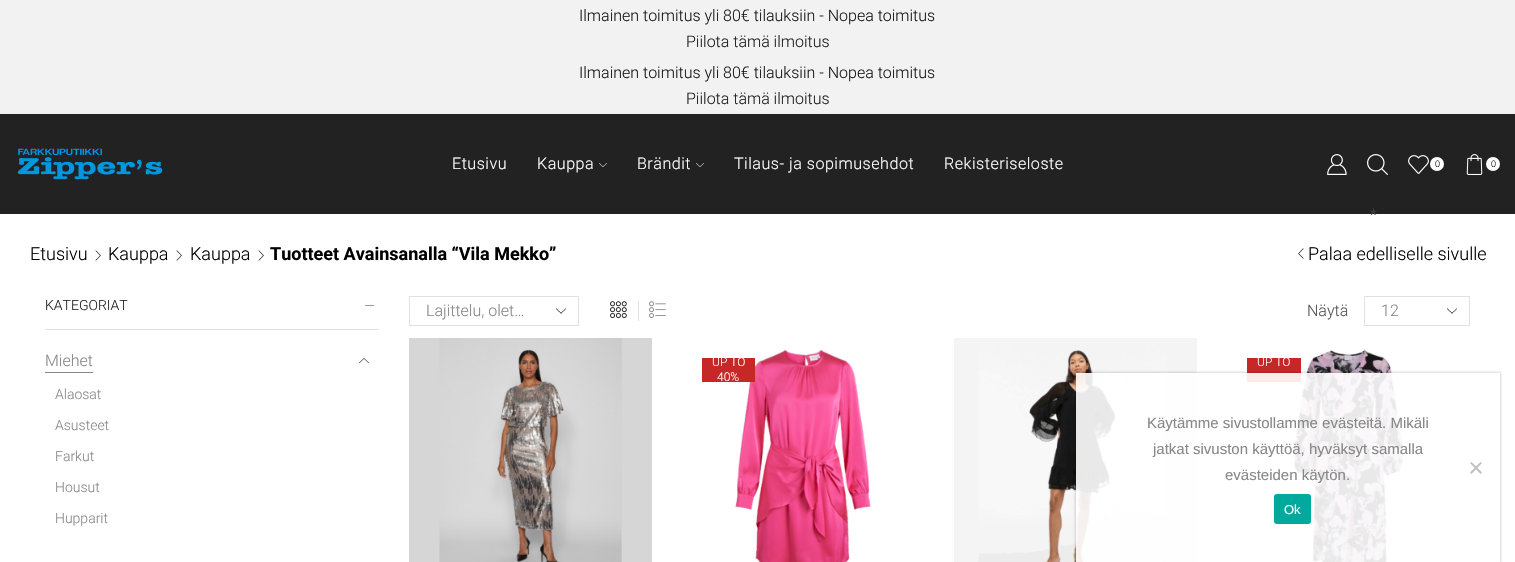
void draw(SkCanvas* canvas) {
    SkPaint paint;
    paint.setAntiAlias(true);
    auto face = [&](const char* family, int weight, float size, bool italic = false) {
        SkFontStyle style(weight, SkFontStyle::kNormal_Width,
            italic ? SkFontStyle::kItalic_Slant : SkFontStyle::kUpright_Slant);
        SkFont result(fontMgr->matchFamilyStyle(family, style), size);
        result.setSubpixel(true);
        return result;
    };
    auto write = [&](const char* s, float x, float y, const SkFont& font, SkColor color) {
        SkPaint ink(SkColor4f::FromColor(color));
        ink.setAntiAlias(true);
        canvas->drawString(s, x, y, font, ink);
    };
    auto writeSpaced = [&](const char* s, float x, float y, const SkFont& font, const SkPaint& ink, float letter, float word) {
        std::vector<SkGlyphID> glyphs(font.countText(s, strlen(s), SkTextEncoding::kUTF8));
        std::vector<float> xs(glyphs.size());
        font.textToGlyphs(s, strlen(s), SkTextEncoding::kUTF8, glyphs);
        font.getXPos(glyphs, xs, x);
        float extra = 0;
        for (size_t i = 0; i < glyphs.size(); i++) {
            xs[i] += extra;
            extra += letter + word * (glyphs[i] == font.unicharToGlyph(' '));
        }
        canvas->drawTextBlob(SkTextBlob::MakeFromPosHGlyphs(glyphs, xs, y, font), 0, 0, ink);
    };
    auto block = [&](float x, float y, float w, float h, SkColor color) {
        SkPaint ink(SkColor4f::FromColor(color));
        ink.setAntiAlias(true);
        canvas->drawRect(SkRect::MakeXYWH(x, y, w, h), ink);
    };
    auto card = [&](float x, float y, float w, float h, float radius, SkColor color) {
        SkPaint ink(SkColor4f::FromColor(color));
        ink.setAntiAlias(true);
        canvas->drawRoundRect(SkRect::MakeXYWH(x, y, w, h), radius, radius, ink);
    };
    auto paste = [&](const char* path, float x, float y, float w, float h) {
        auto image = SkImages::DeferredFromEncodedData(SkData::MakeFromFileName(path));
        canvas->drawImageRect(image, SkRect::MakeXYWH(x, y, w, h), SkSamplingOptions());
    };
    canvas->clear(SK_ColorWHITE);
    block(0, 0, 1515, 114, SkColorSetRGB(242, 242, 242));
    auto kFont1 = face("Roboto", 300, 16);
    write("Ilmainen toimitus yli 80€ tilauksiin - Nopea toimitus", 579, 21, kFont1, SkColorSetRGB(26, 26, 26));
    write("Piilota tämä ilmoitus", 686, 47, kFont1, SkColorSetRGB(34, 34, 34));
    write("Ilmainen toimitus yli 80€ tilauksiin - Nopea toimitus", 579, 78, kFont1, SkColorSetRGB(26, 26, 26));
    write("Piilota tämä ilmoitus", 686, 104, kFont1, SkColorSetRGB(34, 34, 34));
    block(0, 114, 1515, 100, SkColorSetRGB(34, 34, 34));
    paste("pic1.png", 17, 148, 146, 32);
    auto kFont2 = face("Roboto", 300, 16.1f);
    paint.setColor(SK_ColorWHITE);
    writeSpaced("Etusivu", 452, 169, kFont2, paint, 0.5f, 0);
    writeSpaced("Kauppa", 537, 169, kFont2, paint, 0.5f, 0);
    paste("pic2.png", 599, 163, 8, 4);
    writeSpaced("Brändit", 637, 169, kFont2, paint, 0.5f, 0);
    paste("pic2.png", 696, 163, 8, 4);
    writeSpaced("Tilaus- ja sopimusehdot", 734, 169, kFont2, paint, 0.5f, 0);
    writeSpaced("Rekisteriseloste", 944, 169, kFont2, paint, 0.5f, 0);
    paste("pic3.png", 1367, 154, 21, 21);
    paste("pic4.png", 1408, 155, 21, 19);
    canvas->drawCircle(1437, 164, 7, paint);
    auto kFont3 = face("Roboto", 300, 9);
    write("0", 1435, 167, kFont3, SK_ColorBLACK);
    paste("pic5.png", 1466, 154, 17, 21);
    canvas->drawCircle(1493, 164, 7, paint);
    write("0", 1491, 167, kFont3, SK_ColorBLACK);
    paste("pic6.png", 1327, 154, 20, 21);
    write("*", 1370, 220, kFont1, SkColorSetRGB(68, 68, 68));
    auto kFont4 = face("Roboto", 300, 18);
    write("Etusivu", 30, 260, kFont4, SK_ColorBLACK);
    paste("pic7.png", 95, 250, 6, 11);
    write("Kauppa", 108, 260, kFont4, SK_ColorBLACK);
    paste("pic7.png", 176, 250, 6, 11);
    write("Kauppa", 190, 260, kFont4, SK_ColorBLACK);
    paste("pic7.png", 258, 250, 6, 11);
    auto kFont5 = face("Roboto", 700, 18);
    write("Tuotteet Avainsanalla “Vila Mekko”", 270, 260, kFont5, SK_ColorBLACK);
    paste("pic8.png", 1298, 248, 6, 11);
    write("Palaa edelliselle sivulle", 1308, 260, kFont4, SK_ColorBLACK);
    block(45, 329, 334, 1, SkColorSetRGB(225, 225, 225));
    auto kFont6 = face("Roboto", 300, 14);
    write("KATEGORIAT", 45, 310, kFont6, SkColorSetRGB(34, 34, 34));
    paste("pic9.png", 365, 305, 9, 1);
    write("Miehet", 45, 366, kFont1, SkColorSetRGB(136, 136, 136));
    block(45, 372, 48, 1, SkColorSetRGB(136, 136, 136));
    paste("pic10.png", 359, 358, 10, 6);
    write("Alaosat", 55, 399, kFont6, SkColorSetRGB(136, 136, 136));
    write("Asusteet", 55, 430, kFont6, SkColorSetRGB(136, 136, 136));
    write("Farkut", 55, 461, kFont6, SkColorSetRGB(136, 136, 136));
    write("Housut", 55, 492, kFont6, SkColorSetRGB(136, 136, 136));
    write("Hupparit", 55, 523, kFont6, SkColorSetRGB(136, 136, 136));
    paste("pic11.png", 556, 308, 10, 6);
    paint.setStyle(SkPaint::kStroke_Style);
    paint.setStrokeWidth(1);
    paint.setColor(SkColorSetRGB(225, 225, 225));
    canvas->drawRect(SkRect::MakeXYWH(409.5f, 296.5f, 169, 29), paint);
    write("Lajittelu, olet…", 426, 316, kFont1, SkColorSetRGB(136, 136, 136));
    paste("pic12.png", 610, 301, 17, 17);
    block(638, 301, 1, 20, SkColorSetRGB(225, 225, 225));
    paste("pic13.png", 649, 301, 17, 17);
    write("Näytä", 1307, 316, kFont1, SkColorSetRGB(85, 85, 85));
    paste("pic14.png", 1447, 308, 10, 6);
    canvas->drawRect(SkRect::MakeXYWH(1364.5f, 296.5f, 105, 29), paint);
    write("12", 1381, 316, kFont1, SkColorSetRGB(136, 136, 136));
    paste("pic15.png", 409, 338, 243, 224);
    paste("pic16.png", 735, 349, 136, 213);
    block(702, 358, 53, 24, SkColorSetRGB(198, 40, 40));
    auto kFont7 = face("Roboto", 300, 12);
    write("UP TO", 712, 366, kFont7, SK_ColorWHITE);
    write("40%", 717, 381, kFont7, SK_ColorWHITE);
    paste("pic17.png", 954, 338, 243, 224);
    paste("pic18.png", 1294, 350, 109, 212);
    block(1247, 358, 54, 24, SkColorSetRGB(198, 40, 40));
    write("UP TO", 1257, 366, kFont7, SK_ColorWHITE);
    canvas->save();
    canvas->clipPath(SkPathBuilder(SkPathFillType::kEvenOdd).moveTo(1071, 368).lineTo(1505, 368).lineTo(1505, 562).lineTo(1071, 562).close().moveTo(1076, 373).lineTo(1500, 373).lineTo(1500, 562).lineTo(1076, 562).close().detach(), true);
    paint.setStyle(SkPaint::kFill_Style);
    paint.setColor(SkColorSetARGB(38, 0, 0, 0));
    paint.setMaskFilter(SkMaskFilter::MakeBlur(kNormal_SkBlurStyle, 1));
    canvas->drawRect(SkRect::MakeXYWH(1075, 372, 426, 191), paint);
    paint.setMaskFilter(nullptr);
    canvas->restore();
    block(1076, 373, 327, 189, SkColorSetARGB(230, 255, 255, 255));
    auto kFont8 = face("Liberation Sans", 400, 15);
    write("Käytämme sivustollamme evästeitä. Mikäli", 1147, 428, kFont8, SkColorSetRGB(136, 136, 136));
    write("jatkat sivuston käyttöä, hyväksyt samalla", 1153, 454, kFont8, SkColorSetRGB(136, 136, 136));
    write("evästeiden käytön.", 1225, 480, kFont8, SkColorSetRGB(136, 136, 136));
    paint.setColor(SkColorSetRGB(192, 192, 192));
    canvas->drawPath(SkPathBuilder().moveTo(1480.5f, 462).lineTo(1482, 463).lineTo(1471.5f, 474).lineTo(1470, 472.5f).close().detach(), paint);
    canvas->drawPath(SkPathBuilder().moveTo(1470, 463).lineTo(1471.5f, 462).lineTo(1482, 472.5f).lineTo(1480.5f, 474).close().detach(), paint);
    card(1274, 494, 37, 30, 3, SkColorSetRGB(0, 169, 157));
    auto kFont9 = face("Liberation Sans", 400, 13);
    write("Ok", 1284, 514, kFont9, SK_ColorWHITE);
}
